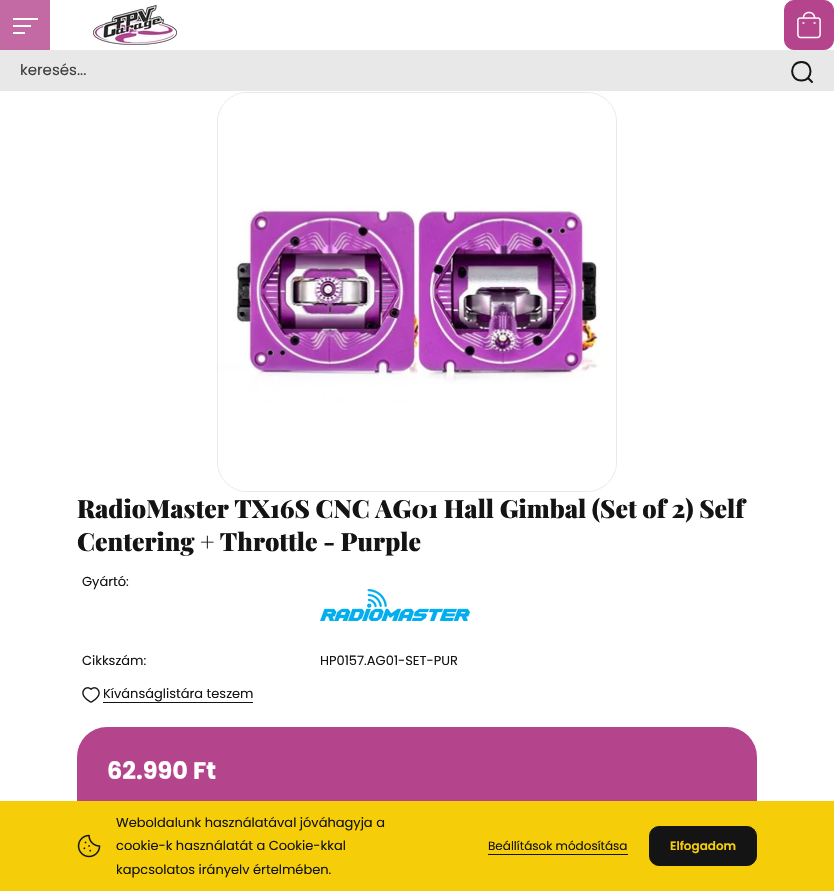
void draw(SkCanvas* canvas) {
    SkPaint paint;
    paint.setAntiAlias(true);
    auto face = [&](const char* family, int weight, float size, bool italic = false) {
        SkFontStyle style(weight, SkFontStyle::kNormal_Width,
            italic ? SkFontStyle::kItalic_Slant : SkFontStyle::kUpright_Slant);
        SkFont result(fontMgr->matchFamilyStyle(family, style), size);
        result.setSubpixel(true);
        return result;
    };
    auto write = [&](const char* s, float x, float y, const SkFont& font, SkColor color) {
        SkPaint ink(SkColor4f::FromColor(color));
        ink.setAntiAlias(true);
        canvas->drawString(s, x, y, font, ink);
    };
    auto block = [&](float x, float y, float w, float h, SkColor color) {
        SkPaint ink(SkColor4f::FromColor(color));
        ink.setAntiAlias(true);
        canvas->drawRect(SkRect::MakeXYWH(x, y, w, h), ink);
    };
    auto card = [&](float x, float y, float w, float h, float radius, SkColor color) {
        SkPaint ink(SkColor4f::FromColor(color));
        ink.setAntiAlias(true);
        canvas->drawRoundRect(SkRect::MakeXYWH(x, y, w, h), radius, radius, ink);
    };
    auto paste = [&](const char* path, float x, float y, float w, float h) {
        auto image = SkImages::DeferredFromEncodedData(SkData::MakeFromFileName(path));
        canvas->drawImageRect(image, SkRect::MakeXYWH(x, y, w, h), SkSamplingOptions());
    };
    canvas->clear(SK_ColorWHITE);
    block(0, 0, 50, 50, SkColorSetRGB(195, 106, 164));
    block(13, 18, 25, 2, SK_ColorWHITE);
    block(13, 25, 18, 2, SK_ColorWHITE);
    block(13, 32, 12, 2, SK_ColorWHITE);
    paste("pic1.png", 93, 5, 84, 40);
    paint.setColor(SkColorSetRGB(180, 69, 141));
    canvas->drawRoundRect(SkRect::MakeXYWH(784.5f, 0.5f, 49, 49), 9.5f, 9.5f, paint);
    paint.setStyle(SkPaint::kStroke_Style);
    paint.setStrokeWidth(1);
    canvas->drawRoundRect(SkRect::MakeXYWH(784.5f, 0.5f, 49, 49), 9.5f, 9.5f, paint);
    paste("pic2.png", 797, 11, 24, 28);
    block(0, 50, 834, 41, SkColorSetRGB(232, 232, 232));
    auto kFont1 = face("Poppins", 400, 15);
    write("keresés...", 20, 75, kFont1, SkColorSetRGB(62, 62, 62));
    paint.setStrokeWidth(2);
    paint.setStrokeCap(SkPaint::kRound_Cap);
    paint.setStrokeJoin(SkPaint::kRound_Join);
    paint.setColor(SkColorSetRGB(20, 20, 20));
    canvas->drawPath(SkPathBuilder().moveTo(812, 82).lineTo(808, 78).moveTo(801.5f, 80.5f).cubicTo(789, 80.5f, 789, 62, 801.5f, 62).cubicTo(813.5f, 62, 813.5f, 80.5f, 801.5f, 80.5f).close().detach(), paint);
    paint.setStrokeWidth(1);
    paint.setStrokeCap(SkPaint::kButt_Cap);
    paint.setStrokeJoin(SkPaint::kMiter_Join);
    paint.setColor(SkColorSetRGB(232, 232, 232));
    canvas->drawRoundRect(SkRect::MakeXYWH(217.5f, 92.5f, 399, 399), 29.5f, 29.5f, paint);
    paste("pic3.png", 218, 93, 398, 398);
    auto kFont2 = face("Playfair Display", 900, 25);
    write("RadioMaster TX16S CNC AG01 Hall Gimbal (Set of 2) Self", 77, 518, kFont2, SkColorSetRGB(20, 20, 20));
    write("Centering + Throttle - Purple", 77, 551, kFont2, SkColorSetRGB(20, 20, 20));
    auto kFont3 = face("Poppins", 400, 13);
    write("Gyártó:", 82, 586, kFont3, SkColorSetRGB(20, 20, 20));
    paste("pic4.png", 320, 589, 150, 32);
    write("Cikkszám:", 82, 665, kFont3, SkColorSetRGB(20, 20, 20));
    write("HP0157.AG01-SET-PUR", 320, 665, kFont3, SkColorSetRGB(20, 20, 20));
    paste("pic5.png", 82, 687, 18, 16);
    write("Kívánságlistára teszem", 103, 698, kFont3, SkColorSetRGB(20, 20, 20));
    block(103, 702, 150, 1, SkColorSetRGB(20, 20, 20));
    card(77, 727, 680, 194, 30, SkColorSetRGB(180, 69, 141));
    auto kFont4 = face("Poppins", 700, 24);
    write("62.990 Ft", 107, 779, kFont4, SK_ColorWHITE);
    block(0, 801, 834, 90, SkColorSetRGB(245, 205, 8));
    paste("pic6.png", 77, 834, 24, 24);
    write("Weboldalunk használatával jóváhagyja a", 116, 827, kFont3, SkColorSetRGB(20, 20, 20));
    write("cookie-k használatát a Cookie-kkal", 116, 850, kFont3, SkColorSetRGB(20, 20, 20));
    write("kapcsolatos irányelv értelmében.", 116, 874, kFont3, SkColorSetRGB(20, 20, 20));
    auto kFont5 = face("Poppins", 400, 12);
    write("Beállítások módosítása", 488, 850, kFont5, SkColorSetRGB(20, 20, 20));
    block(488, 854, 140, 1, SkColorSetRGB(20, 20, 20));
    paint.setStyle(SkPaint::kFill_Style);
    paint.setColor(SkColorSetRGB(20, 20, 20));
    canvas->drawRoundRect(SkRect::MakeXYWH(649.5f, 826.5f, 107, 39), 9.5f, 9.5f, paint);
    paint.setStyle(SkPaint::kStroke_Style);
    canvas->drawRoundRect(SkRect::MakeXYWH(649.5f, 826.5f, 107, 39), 9.5f, 9.5f, paint);
    auto kFont6 = face("Poppins", 600, 12);
    write("Elfogadom", 670, 850, kFont6, SkColorSetRGB(245, 205, 8));
}
